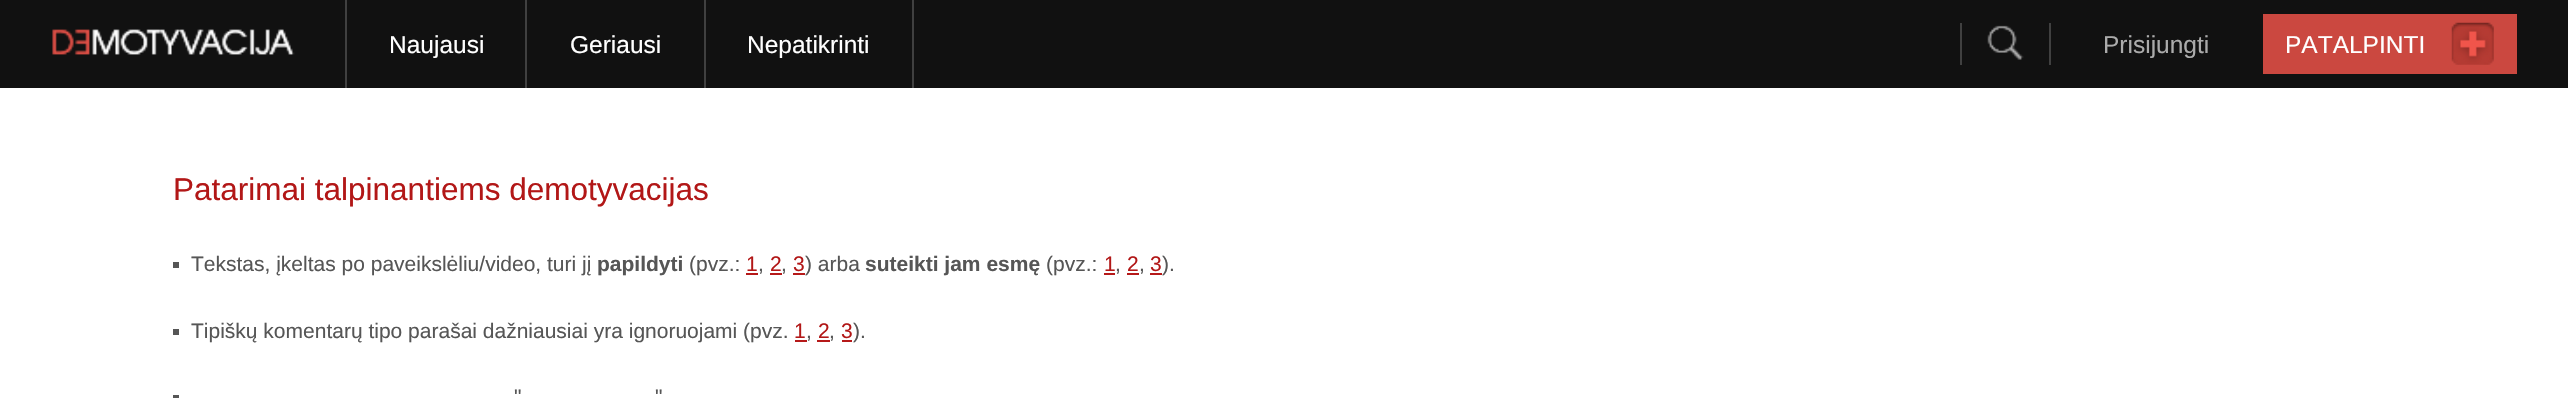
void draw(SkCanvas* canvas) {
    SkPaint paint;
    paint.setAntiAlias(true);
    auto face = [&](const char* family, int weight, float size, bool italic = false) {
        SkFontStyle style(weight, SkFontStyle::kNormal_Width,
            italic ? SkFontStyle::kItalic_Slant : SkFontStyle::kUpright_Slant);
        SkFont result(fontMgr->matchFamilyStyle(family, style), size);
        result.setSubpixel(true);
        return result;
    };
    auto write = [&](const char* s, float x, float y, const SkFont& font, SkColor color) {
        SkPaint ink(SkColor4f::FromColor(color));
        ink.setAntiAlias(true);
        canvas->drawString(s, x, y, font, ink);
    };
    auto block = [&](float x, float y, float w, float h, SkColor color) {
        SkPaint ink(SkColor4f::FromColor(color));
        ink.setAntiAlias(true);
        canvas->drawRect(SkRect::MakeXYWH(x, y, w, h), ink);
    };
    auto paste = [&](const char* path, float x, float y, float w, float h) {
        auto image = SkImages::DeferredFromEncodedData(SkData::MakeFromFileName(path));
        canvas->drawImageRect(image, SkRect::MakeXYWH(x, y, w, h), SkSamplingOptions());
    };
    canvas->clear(SK_ColorWHITE);
    block(0, 0, 2568, 88, SkColorSetRGB(17, 17, 17));
    paste("pic1.png", 52, 29, 243, 26);
    block(345, 0, 2, 88, SkColorSetRGB(64, 64, 64));
    block(525, 0, 2, 88, SkColorSetRGB(64, 64, 64));
    auto kFont1 = face("Liberation Sans", 400, 24.5f);
    write("Naujausi", 389, 53, kFont1, SK_ColorWHITE);
    block(704, 0, 2, 88, SkColorSetRGB(64, 64, 64));
    write("Geriausi", 570, 53, kFont1, SK_ColorWHITE);
    block(912, 0, 2, 88, SkColorSetRGB(64, 64, 64));
    write("Nepatikrinti", 747, 53, kFont1, SK_ColorWHITE);
    paste("pic2.png", 1987, 25, 37, 35);
    block(2049, 23, 2, 42, SkColorSetRGB(64, 64, 64));
    block(1960, 23, 2, 42, SkColorSetRGB(64, 64, 64));
    write("Prisijungti", 2103, 53, kFont1, SkColorSetRGB(171, 171, 171));
    block(2263, 14, 254, 60, SkColorSetRGB(203, 72, 64));
    write("PATALPINTI", 2285, 53, kFont1, SK_ColorWHITE);
    paste("pic3.png", 2451, 22, 43, 43);
    auto kFont2 = face("Liberation Sans", 400, 31.5f);
    write("Patarimai talpinantiems demotyvacijas", 173, 200, kFont2, SkColorSetRGB(178, 23, 23));
    block(173, 262, 6, 6, SkColorSetRGB(86, 86, 86));
    auto kFont3 = face("Liberation Sans", 400, 21);
    write("Tekstas, įkeltas po paveikslėliu/video, turi jį", 191, 271, kFont3, SkColorSetRGB(86, 86, 86));
    auto kFont4 = face("Liberation Sans", 700, 21);
    write("papildyti", 597, 271, kFont4, SkColorSetRGB(86, 86, 86));
    write("(pvz.:", 689, 271, kFont3, SkColorSetRGB(86, 86, 86));
    write("1", 746, 271, kFont3, SkColorSetRGB(178, 23, 23));
    block(746, 273, 12, 2, SkColorSetRGB(182, 25, 25));
    write(",", 758, 271, kFont3, SkColorSetRGB(86, 86, 86));
    write("2", 770, 271, kFont3, SkColorSetRGB(178, 23, 23));
    block(770, 273, 12, 2, SkColorSetRGB(182, 25, 25));
    write(",", 781, 271, kFont3, SkColorSetRGB(86, 86, 86));
    write("3", 793, 271, kFont3, SkColorSetRGB(178, 23, 23));
    block(793, 273, 12, 2, SkColorSetRGB(182, 25, 25));
    write(") arba", 805, 271, kFont3, SkColorSetRGB(86, 86, 86));
    write("suteikti jam esmę", 865, 271, kFont4, SkColorSetRGB(86, 86, 86));
    write("(pvz.:", 1046, 271, kFont3, SkColorSetRGB(86, 86, 86));
    write("1", 1104, 271, kFont3, SkColorSetRGB(178, 23, 23));
    block(1104, 273, 11, 2, SkColorSetRGB(182, 25, 25));
    write(",", 1115, 271, kFont3, SkColorSetRGB(86, 86, 86));
    write("2", 1127, 271, kFont3, SkColorSetRGB(178, 23, 23));
    block(1127, 273, 12, 2, SkColorSetRGB(182, 25, 25));
    write(",", 1139, 271, kFont3, SkColorSetRGB(86, 86, 86));
    write("3", 1150, 271, kFont3, SkColorSetRGB(178, 23, 23));
    block(1150, 273, 12, 2, SkColorSetRGB(182, 25, 25));
    write(").", 1162, 271, kFont3, SkColorSetRGB(86, 86, 86));
    block(173, 329, 6, 6, SkColorSetRGB(86, 86, 86));
    write("Tipiškų komentarų tipo parašai dažniausiai yra ignoruojami (pvz.", 191, 338, kFont3, SkColorSetRGB(86, 86, 86));
    write("1", 794, 338, kFont3, SkColorSetRGB(178, 23, 23));
    block(795, 340, 12, 2, SkColorSetRGB(182, 25, 25));
    write(",", 806, 338, kFont3, SkColorSetRGB(86, 86, 86));
    write("2", 818, 338, kFont3, SkColorSetRGB(178, 23, 23));
    block(817, 340, 13, 2, SkColorSetRGB(182, 25, 25));
    write(",", 829, 338, kFont3, SkColorSetRGB(86, 86, 86));
    write("3", 841, 338, kFont3, SkColorSetRGB(178, 23, 23));
    block(842, 340, 10, 2, SkColorSetRGB(182, 25, 25));
    write(").", 853, 338, kFont3, SkColorSetRGB(86, 86, 86));
    block(173, 395, 6, 3, SkColorSetRGB(86, 86, 86));
    write("\"", 514, 404, kFont3, SkColorSetRGB(86, 86, 86));
    write("\"", 655, 404, kFont3, SkColorSetRGB(86, 86, 86));
}
